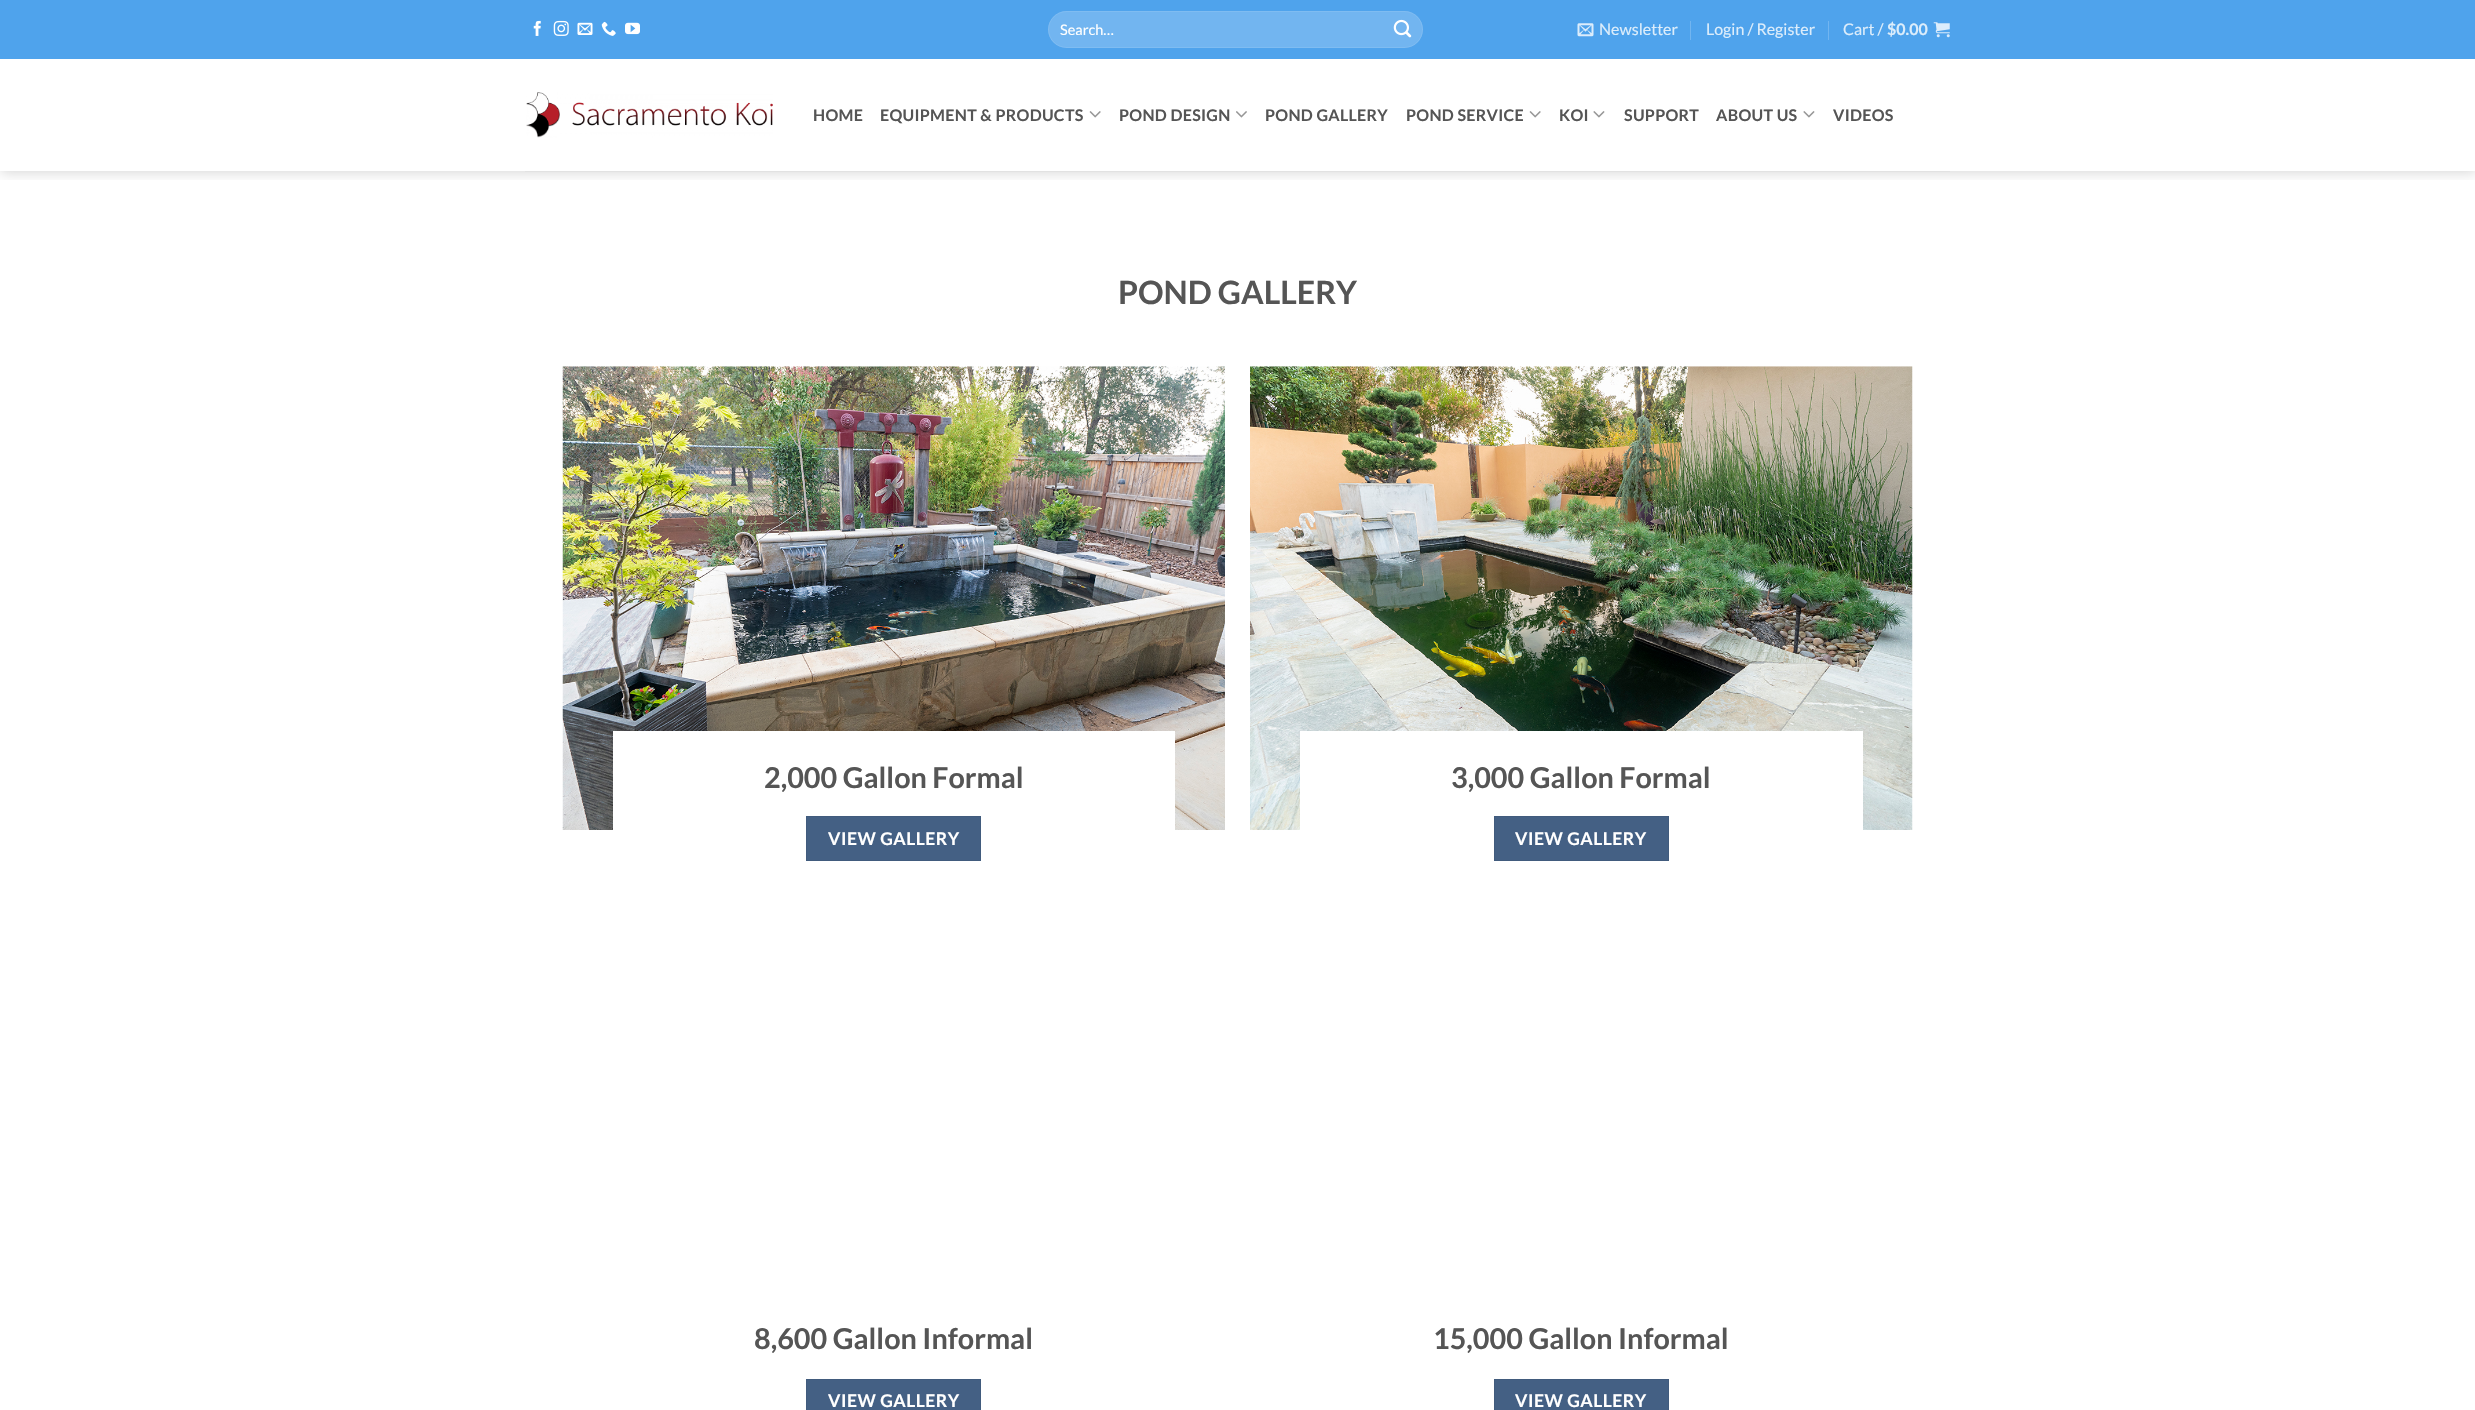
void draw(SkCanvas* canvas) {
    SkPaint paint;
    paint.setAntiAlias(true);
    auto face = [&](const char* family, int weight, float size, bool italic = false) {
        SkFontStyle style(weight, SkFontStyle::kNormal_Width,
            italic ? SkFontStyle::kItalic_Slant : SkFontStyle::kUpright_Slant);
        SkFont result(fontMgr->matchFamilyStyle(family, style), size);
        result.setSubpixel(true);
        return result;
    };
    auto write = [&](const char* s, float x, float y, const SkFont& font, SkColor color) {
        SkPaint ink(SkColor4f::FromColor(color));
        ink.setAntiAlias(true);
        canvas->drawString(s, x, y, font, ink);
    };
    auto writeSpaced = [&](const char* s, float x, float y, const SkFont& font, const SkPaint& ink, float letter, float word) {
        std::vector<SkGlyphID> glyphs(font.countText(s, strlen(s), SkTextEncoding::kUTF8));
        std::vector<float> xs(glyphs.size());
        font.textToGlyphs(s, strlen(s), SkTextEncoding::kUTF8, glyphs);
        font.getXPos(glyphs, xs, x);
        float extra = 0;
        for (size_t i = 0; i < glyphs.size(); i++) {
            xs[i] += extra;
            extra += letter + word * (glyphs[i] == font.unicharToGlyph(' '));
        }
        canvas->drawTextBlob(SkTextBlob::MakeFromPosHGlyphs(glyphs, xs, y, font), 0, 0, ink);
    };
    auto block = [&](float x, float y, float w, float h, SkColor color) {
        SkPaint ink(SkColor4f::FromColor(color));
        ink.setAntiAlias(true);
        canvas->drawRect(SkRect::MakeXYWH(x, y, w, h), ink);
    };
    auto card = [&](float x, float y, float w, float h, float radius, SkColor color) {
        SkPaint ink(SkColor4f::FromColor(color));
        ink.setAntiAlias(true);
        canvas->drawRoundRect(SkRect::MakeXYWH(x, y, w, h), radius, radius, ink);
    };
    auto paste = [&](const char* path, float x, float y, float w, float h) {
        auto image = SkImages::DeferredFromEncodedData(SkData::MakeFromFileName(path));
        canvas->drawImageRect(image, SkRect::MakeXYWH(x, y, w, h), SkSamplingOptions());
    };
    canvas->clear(SK_ColorWHITE);
    canvas->save();
    canvas->clipRect(SkRect::MakeXYWH(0, 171, 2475, 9));
    paint.setColor(SkColorSetARGB(38, 0, 0, 0));
    paint.setMaskFilter(SkMaskFilter::MakeBlur(kNormal_SkBlurStyle, 6));
    canvas->drawRect(SkRect::MakeXYWH(1, 1, 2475, 172), paint);
    paint.setMaskFilter(nullptr);
    canvas->restore();
    block(0, 0, 2475, 59, SkColorSetRGB(79, 163, 236));
    paste("pic1.png", 533, 20, 8, 16);
    paste("pic2.png", 553, 20, 16, 16);
    paste("pic3.png", 577, 22, 16, 13);
    paste("pic4.png", 601, 21, 15, 15);
    paste("pic5.png", 625, 22, 15, 13);
    card(1048, 11, 375, 37, 18.5f, SkColorSetRGB(114, 181, 240));
    paint.setStyle(SkPaint::kStroke_Style);
    paint.setStrokeWidth(1);
    paint.setColor(SkColorSetARGB(23, 255, 255, 255));
    canvas->drawRoundRect(SkRect::MakeXYWH(1048.5f, 11.5f, 374, 36), 18, 18, paint);
    auto kFont1 = face("Lato", 400, 14.5f);
    write("Search…", 1060, 35, kFont1, SK_ColorWHITE);
    paste("pic6.png", 1393, 19, 19, 19);
    paste("pic7.png", 1577, 23, 17, 14);
    auto kFont2 = face("Lato", 400, 16);
    write("Newsletter", 1599, 35, kFont2, SkColorSetRGB(220, 237, 251));
    block(1690, 21, 1, 19, SkColorSetRGB(114, 181, 240));
    write("Login / Register", 1706, 35, kFont2, SkColorSetRGB(220, 237, 251));
    block(1828, 21, 1, 19, SkColorSetRGB(114, 181, 240));
    write("Cart /", 1843, 35, kFont2, SkColorSetRGB(220, 237, 251));
    auto kFont3 = face("Lato", 700, 16);
    write("$0.00", 1887, 35, kFont3, SkColorSetRGB(220, 237, 251));
    paste("pic8.png", 1933, 22, 17, 16);
    paste("pic9.png", 526, 92, 247, 46);
    paint.setStyle(SkPaint::kFill_Style);
    paint.setColor(SkColorSetRGB(85, 85, 85));
    writeSpaced("HOME", 813, 121, kFont3, paint, 0.3f, 0);
    writeSpaced("EQUIPMENT & PRODUCTS", 880, 121, kFont3, paint, 0.3f, 0);
    paste("pic10.png", 1089, 111, 12, 7);
    writeSpaced("POND DESIGN", 1119, 121, kFont3, paint, 0.3f, 0);
    paste("pic11.png", 1236, 111, 11, 7);
    writeSpaced("POND GALLERY", 1265, 121, kFont3, paint, 0.3f, 0);
    writeSpaced("POND SERVICE", 1406, 121, kFont3, paint, 0.3f, 0);
    paste("pic10.png", 1529, 111, 12, 7);
    writeSpaced("KOI", 1559, 121, kFont3, paint, 0.3f, 0);
    paste("pic12.png", 1593, 111, 12, 7);
    writeSpaced("SUPPORT", 1624, 121, kFont3, paint, 0.3f, 0);
    writeSpaced("ABOUT US", 1716, 121, kFont3, paint, 0.3f, 0);
    paste("pic12.png", 1803, 111, 12, 7);
    writeSpaced("VIDEOS", 1833, 121, kFont3, paint, 0.3f, 0);
    block(525, 171, 1425, 1, SkColorSetRGB(226, 226, 226));
    auto kFont4 = face("Lato", 700, 32);
    write("POND GALLERY", 1118, 304, kFont4, SkColorSetRGB(85, 85, 85));
    paste("pic13.png", 562, 366, 663, 464);
    block(613, 731, 562, 99, SK_ColorWHITE);
    auto kFont5 = face("Lato", 700, 28.75f);
    write("2,000 Gallon Formal", 764, 788, kFont5, SkColorSetRGB(85, 85, 85));
    paint.setColor(SkColorSetRGB(68, 96, 132));
    canvas->drawRect(SkRect::MakeXYWH(806.5f, 816.5f, 174, 44), paint);
    paint.setStyle(SkPaint::kStroke_Style);
    paint.setColor(SkColorSetRGB(65, 91, 125));
    canvas->drawRect(SkRect::MakeXYWH(806.5f, 816.5f, 174, 44), paint);
    auto kFont6 = face("Lato", 700, 17.5f);
    paint.setStyle(SkPaint::kFill_Style);
    paint.setColor(SK_ColorWHITE);
    writeSpaced("VIEW GALLERY", 828, 845, kFont6, paint, 0.5f, 0);
    paste("pic14.png", 1250, 366, 663, 464);
    block(1300, 731, 563, 99, SK_ColorWHITE);
    write("3,000 Gallon Formal", 1451, 788, kFont5, SkColorSetRGB(85, 85, 85));
    paint.setColor(SkColorSetRGB(68, 96, 132));
    canvas->drawRect(SkRect::MakeXYWH(1494.5f, 816.5f, 174, 44), paint);
    paint.setStyle(SkPaint::kStroke_Style);
    paint.setColor(SkColorSetRGB(65, 91, 125));
    canvas->drawRect(SkRect::MakeXYWH(1494.5f, 816.5f, 174, 44), paint);
    paint.setStyle(SkPaint::kFill_Style);
    paint.setColor(SK_ColorWHITE);
    writeSpaced("VIEW GALLERY", 1515, 845, kFont6, paint, 0.5f, 0);
    write("8,600 Gallon Informal", 754, 1349, kFont5, SkColorSetRGB(85, 85, 85));
    paint.setColor(SkColorSetRGB(68, 96, 132));
    canvas->drawRect(SkRect::MakeXYWH(806.5f, 1379.5f, 174, 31), paint);
    paint.setStyle(SkPaint::kStroke_Style);
    paint.setColor(SkColorSetRGB(65, 91, 125));
    canvas->drawRect(SkRect::MakeXYWH(806.5f, 1379.5f, 174, 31), paint);
    paint.setStyle(SkPaint::kFill_Style);
    paint.setColor(SK_ColorWHITE);
    writeSpaced("VIEW GALLERY", 828, 1407, kFont6, paint, 0.5f, 0);
    write("15,000 Gallon Informal", 1433, 1349, kFont5, SkColorSetRGB(85, 85, 85));
    paint.setColor(SkColorSetRGB(68, 96, 132));
    canvas->drawRect(SkRect::MakeXYWH(1494.5f, 1379.5f, 174, 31), paint);
    paint.setStyle(SkPaint::kStroke_Style);
    paint.setColor(SkColorSetRGB(65, 91, 125));
    canvas->drawRect(SkRect::MakeXYWH(1494.5f, 1379.5f, 174, 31), paint);
    paint.setStyle(SkPaint::kFill_Style);
    paint.setColor(SK_ColorWHITE);
    writeSpaced("VIEW GALLERY", 1515, 1407, kFont6, paint, 0.5f, 0);
}
